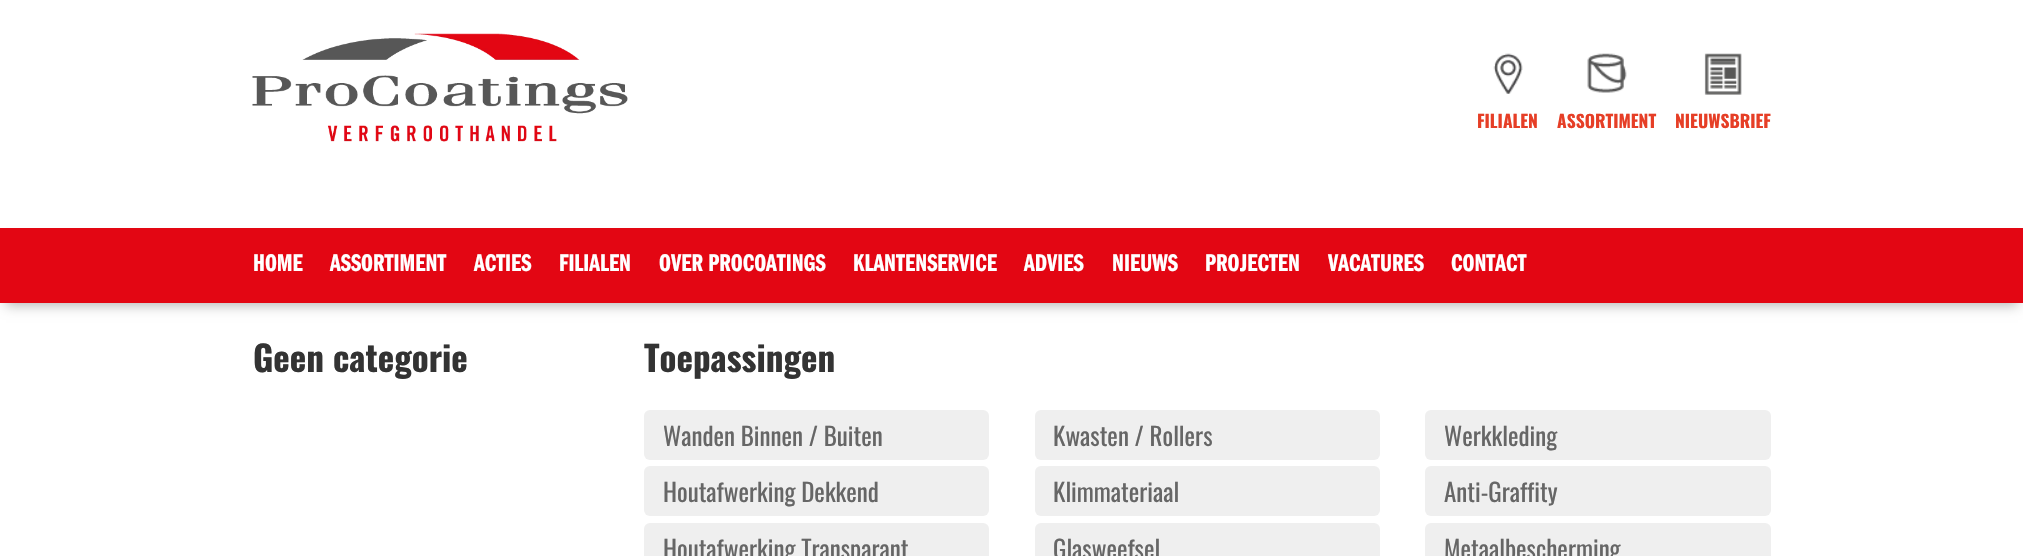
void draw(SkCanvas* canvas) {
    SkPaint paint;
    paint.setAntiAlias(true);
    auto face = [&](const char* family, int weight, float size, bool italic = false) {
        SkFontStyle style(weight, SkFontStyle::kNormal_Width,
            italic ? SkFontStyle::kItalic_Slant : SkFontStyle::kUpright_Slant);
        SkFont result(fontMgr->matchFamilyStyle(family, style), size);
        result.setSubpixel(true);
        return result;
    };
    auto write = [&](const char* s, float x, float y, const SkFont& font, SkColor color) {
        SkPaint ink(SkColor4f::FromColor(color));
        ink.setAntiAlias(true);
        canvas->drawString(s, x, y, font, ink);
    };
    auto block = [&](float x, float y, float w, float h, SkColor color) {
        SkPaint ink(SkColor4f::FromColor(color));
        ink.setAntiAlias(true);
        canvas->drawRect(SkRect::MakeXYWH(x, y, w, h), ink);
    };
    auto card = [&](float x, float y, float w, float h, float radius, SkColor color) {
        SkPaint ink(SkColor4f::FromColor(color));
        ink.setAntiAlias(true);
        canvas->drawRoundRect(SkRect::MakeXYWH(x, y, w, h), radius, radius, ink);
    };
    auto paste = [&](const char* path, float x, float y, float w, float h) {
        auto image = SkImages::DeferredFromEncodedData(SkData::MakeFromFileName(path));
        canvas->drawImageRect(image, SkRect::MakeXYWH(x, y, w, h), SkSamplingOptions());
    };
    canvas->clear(SK_ColorWHITE);
    paste("pic1.png", 252, 33, 376, 109);
    paste("pic2.png", 1493, 53, 30, 41);
    auto kFont1 = face("Oswald", 700, 17.5f);
    write("FILIALEN", 1477, 128, kFont1, SkColorSetRGB(230, 62, 38));
    paste("pic3.png", 1587, 53, 40, 40);
    write("ASSORTIMENT", 1557, 128, kFont1, SkColorSetRGB(230, 62, 38));
    paste("pic4.png", 1704, 53, 38, 42);
    write("NIEUWSBRIEF", 1675, 128, kFont1, SkColorSetRGB(230, 62, 38));
    paint.setColor(SkColorSetARGB(77, 0, 0, 0));
    paint.setMaskFilter(SkMaskFilter::MakeBlur(kNormal_SkBlurStyle, 6));
    canvas->drawRect(SkRect::MakeXYWH(6, 243, 2012, 62), paint);
    paint.setMaskFilter(nullptr);
    block(0, 228, 2023, 75, SkColorSetRGB(227, 6, 19));
    auto kFont2 = face("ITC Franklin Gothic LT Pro", 600, 25);
    write("HOME", 253, 271, kFont2, SK_ColorWHITE);
    write("ASSORTIMENT", 330, 271, kFont2, SK_ColorWHITE);
    write("ACTIES", 474, 271, kFont2, SK_ColorWHITE);
    write("FILIALEN", 559, 271, kFont2, SK_ColorWHITE);
    write("OVER PROCOATINGS", 659, 271, kFont2, SK_ColorWHITE);
    write("KLANTENSERVICE", 853, 271, kFont2, SK_ColorWHITE);
    write("ADVIES", 1024, 271, kFont2, SK_ColorWHITE);
    write("NIEUWS", 1112, 271, kFont2, SK_ColorWHITE);
    write("PROJECTEN", 1205, 271, kFont2, SK_ColorWHITE);
    write("VACATURES", 1328, 271, kFont2, SK_ColorWHITE);
    write("CONTACT", 1451, 271, kFont2, SK_ColorWHITE);
    auto kFont3 = face("Oswald", 700, 35);
    write("Geen categorie", 253, 372, kFont3, SkColorSetRGB(51, 51, 51));
    write("Toepassingen", 644, 372, kFont3, SkColorSetRGB(51, 51, 51));
    card(644, 410, 345, 50, 6, SkColorSetRGB(239, 239, 239));
    auto kFont4 = face("Oswald", 400, 25);
    write("Wanden Binnen / Buiten", 663, 446, kFont4, SkColorSetRGB(102, 102, 102));
    card(644, 466, 345, 50, 6, SkColorSetRGB(239, 239, 239));
    write("Houtafwerking Dekkend", 663, 502, kFont4, SkColorSetRGB(102, 102, 102));
    card(644, 523, 345, 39, 6, SkColorSetRGB(239, 239, 239));
    write("Houtafwerking Transparant", 663, 559, kFont4, SkColorSetRGB(102, 102, 102));
    card(1035, 410, 345, 50, 6, SkColorSetRGB(239, 239, 239));
    write("Kwasten / Rollers", 1053, 446, kFont4, SkColorSetRGB(102, 102, 102));
    card(1035, 466, 345, 50, 6, SkColorSetRGB(239, 239, 239));
    write("Klimmateriaal", 1053, 502, kFont4, SkColorSetRGB(102, 102, 102));
    card(1035, 523, 345, 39, 6, SkColorSetRGB(239, 239, 239));
    write("Glasweefsel", 1053, 559, kFont4, SkColorSetRGB(102, 102, 102));
    card(1425, 410, 346, 50, 6, SkColorSetRGB(239, 239, 239));
    write("Werkkleding", 1444, 446, kFont4, SkColorSetRGB(102, 102, 102));
    card(1425, 466, 346, 50, 6, SkColorSetRGB(239, 239, 239));
    write("Anti-Graffity", 1444, 502, kFont4, SkColorSetRGB(102, 102, 102));
    card(1425, 523, 346, 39, 6, SkColorSetRGB(239, 239, 239));
    write("Metaalbescherming", 1444, 559, kFont4, SkColorSetRGB(102, 102, 102));
}
